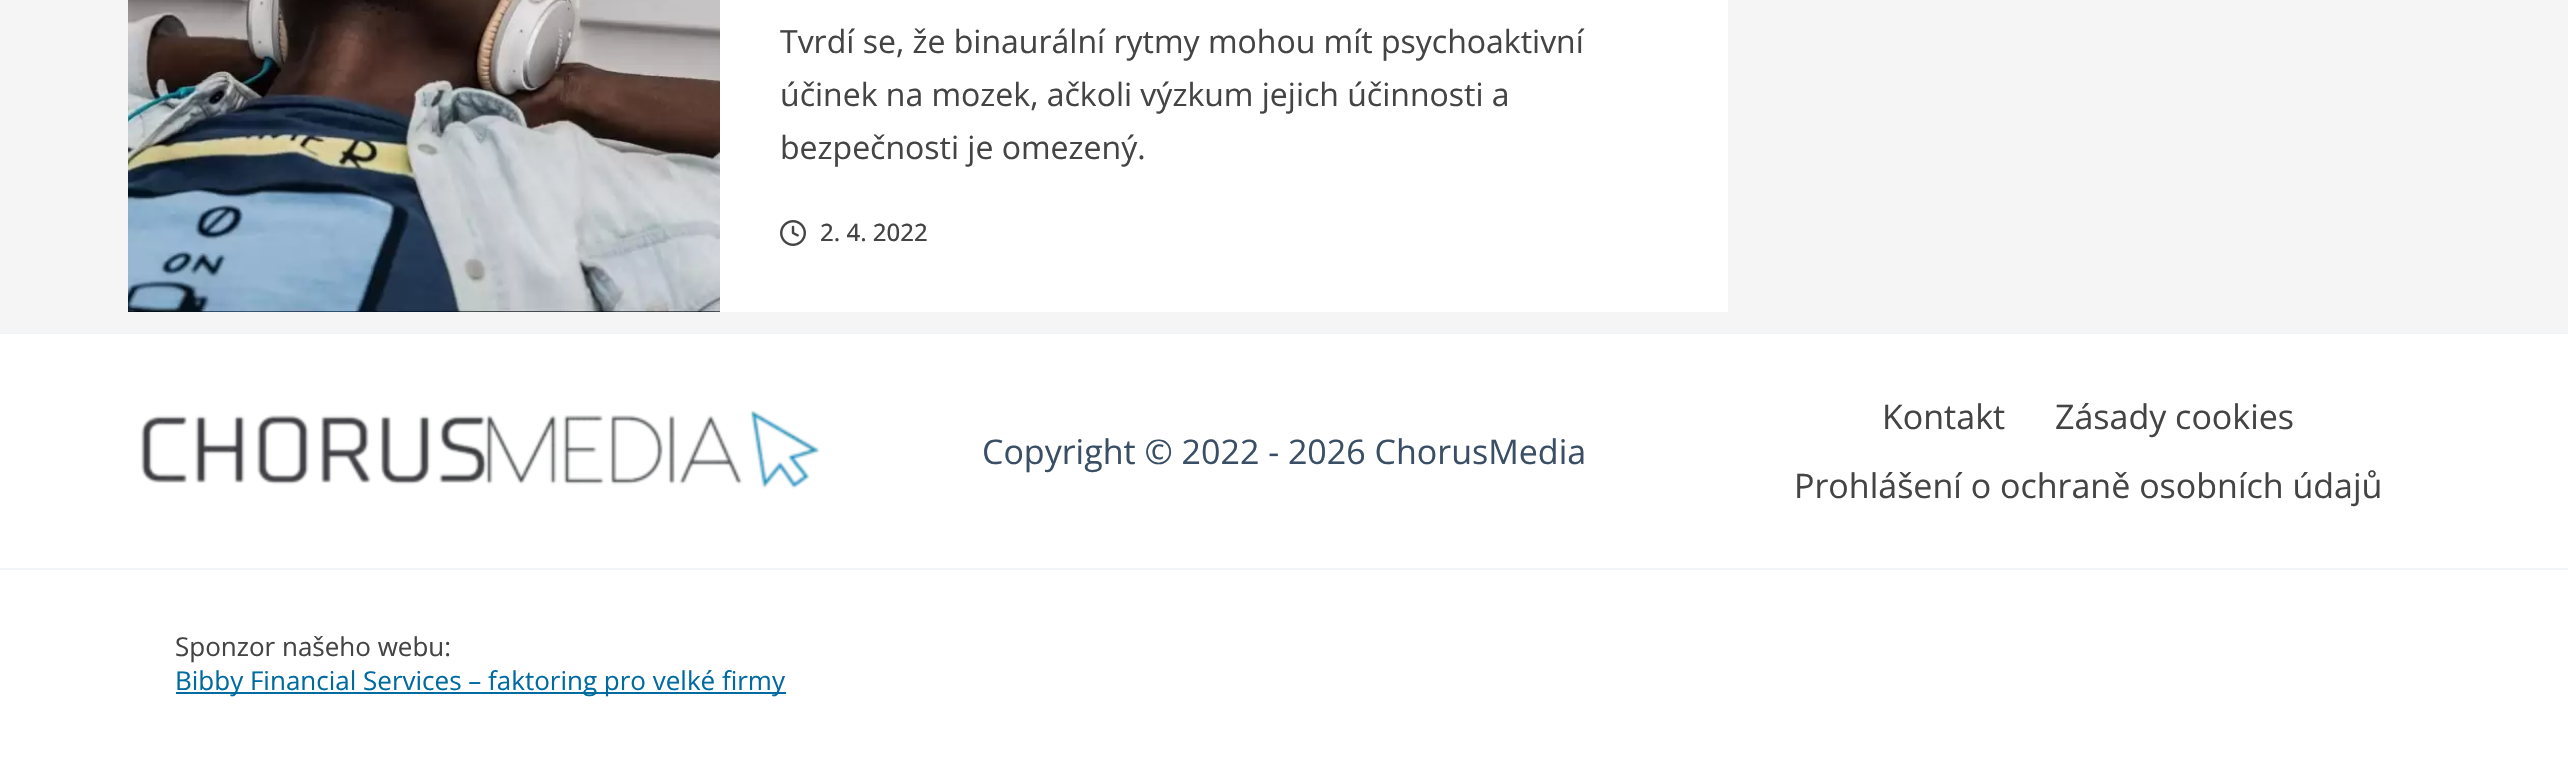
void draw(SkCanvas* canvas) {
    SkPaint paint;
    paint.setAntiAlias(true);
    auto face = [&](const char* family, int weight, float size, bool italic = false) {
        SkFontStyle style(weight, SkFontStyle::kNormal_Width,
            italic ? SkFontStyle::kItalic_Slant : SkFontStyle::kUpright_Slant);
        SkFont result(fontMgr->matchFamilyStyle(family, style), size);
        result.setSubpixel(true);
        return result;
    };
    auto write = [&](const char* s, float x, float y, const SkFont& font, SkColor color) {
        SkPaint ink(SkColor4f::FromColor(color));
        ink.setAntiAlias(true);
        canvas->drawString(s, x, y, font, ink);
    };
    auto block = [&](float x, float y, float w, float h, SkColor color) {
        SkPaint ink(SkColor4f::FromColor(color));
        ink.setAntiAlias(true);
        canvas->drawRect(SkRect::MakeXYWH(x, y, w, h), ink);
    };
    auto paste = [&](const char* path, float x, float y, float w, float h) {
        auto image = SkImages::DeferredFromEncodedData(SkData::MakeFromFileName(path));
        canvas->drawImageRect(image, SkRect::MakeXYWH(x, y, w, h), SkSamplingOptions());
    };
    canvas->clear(SkColorSetRGB(245, 245, 245));
    block(720, 0, 1008, 312, SK_ColorWHITE);
    paste("pic1.png", 128, 0, 592, 312);
    auto kFont1 = face("Open Sans", 400, 32);
    write("Tvrdí se, že binaurální rytmy mohou mít psychoaktivní", 780, 53, kFont1, SkColorSetRGB(68, 68, 68));
    write("účinek na mozek, ačkoli výzkum jejich účinnosti a", 780, 106, kFont1, SkColorSetRGB(68, 68, 68));
    write("bezpečnosti je omezený.", 780, 159, kFont1, SkColorSetRGB(68, 68, 68));
    paste("pic2.png", 780, 220, 26, 26);
    auto kFont2 = face("Open Sans", 500, 24);
    write("2. 4. 2022", 820, 241, kFont2, SkColorSetRGB(68, 68, 68));
    block(0, 334, 2568, 234, SK_ColorWHITE);
    block(0, 332, 2568, 2, SkColorSetRGB(242, 245, 247));
    block(0, 568, 2568, 2, SkColorSetRGB(242, 245, 247));
    paste("pic3.png", 141, 410, 679, 79);
    auto kFont3 = face("Open Sans", 400, 34);
    write("Copyright © 2022 - 2026 ChorusMedia", 982, 464, kFont3, SkColorSetRGB(58, 79, 102));
    write("Kontakt", 1882, 429, kFont3, SkColorSetRGB(68, 68, 68));
    write("Zásady cookies", 2055, 429, kFont3, SkColorSetRGB(68, 68, 68));
    write("Prohlášení o ochraně osobních údajů", 1794, 498, kFont3, SkColorSetRGB(68, 68, 68));
    block(0, 570, 2568, 187, SK_ColorWHITE);
    auto kFont4 = face("Open Sans", 400, 26);
    write("Sponzor našeho webu:", 175, 656, kFont4, SkColorSetRGB(68, 68, 68));
    block(176, 692, 610, 2, SkColorSetRGB(0, 107, 161));
    write("Bibby Financial Services – faktoring pro velké firmy", 175, 690, kFont4, SkColorSetRGB(0, 107, 161));
}
